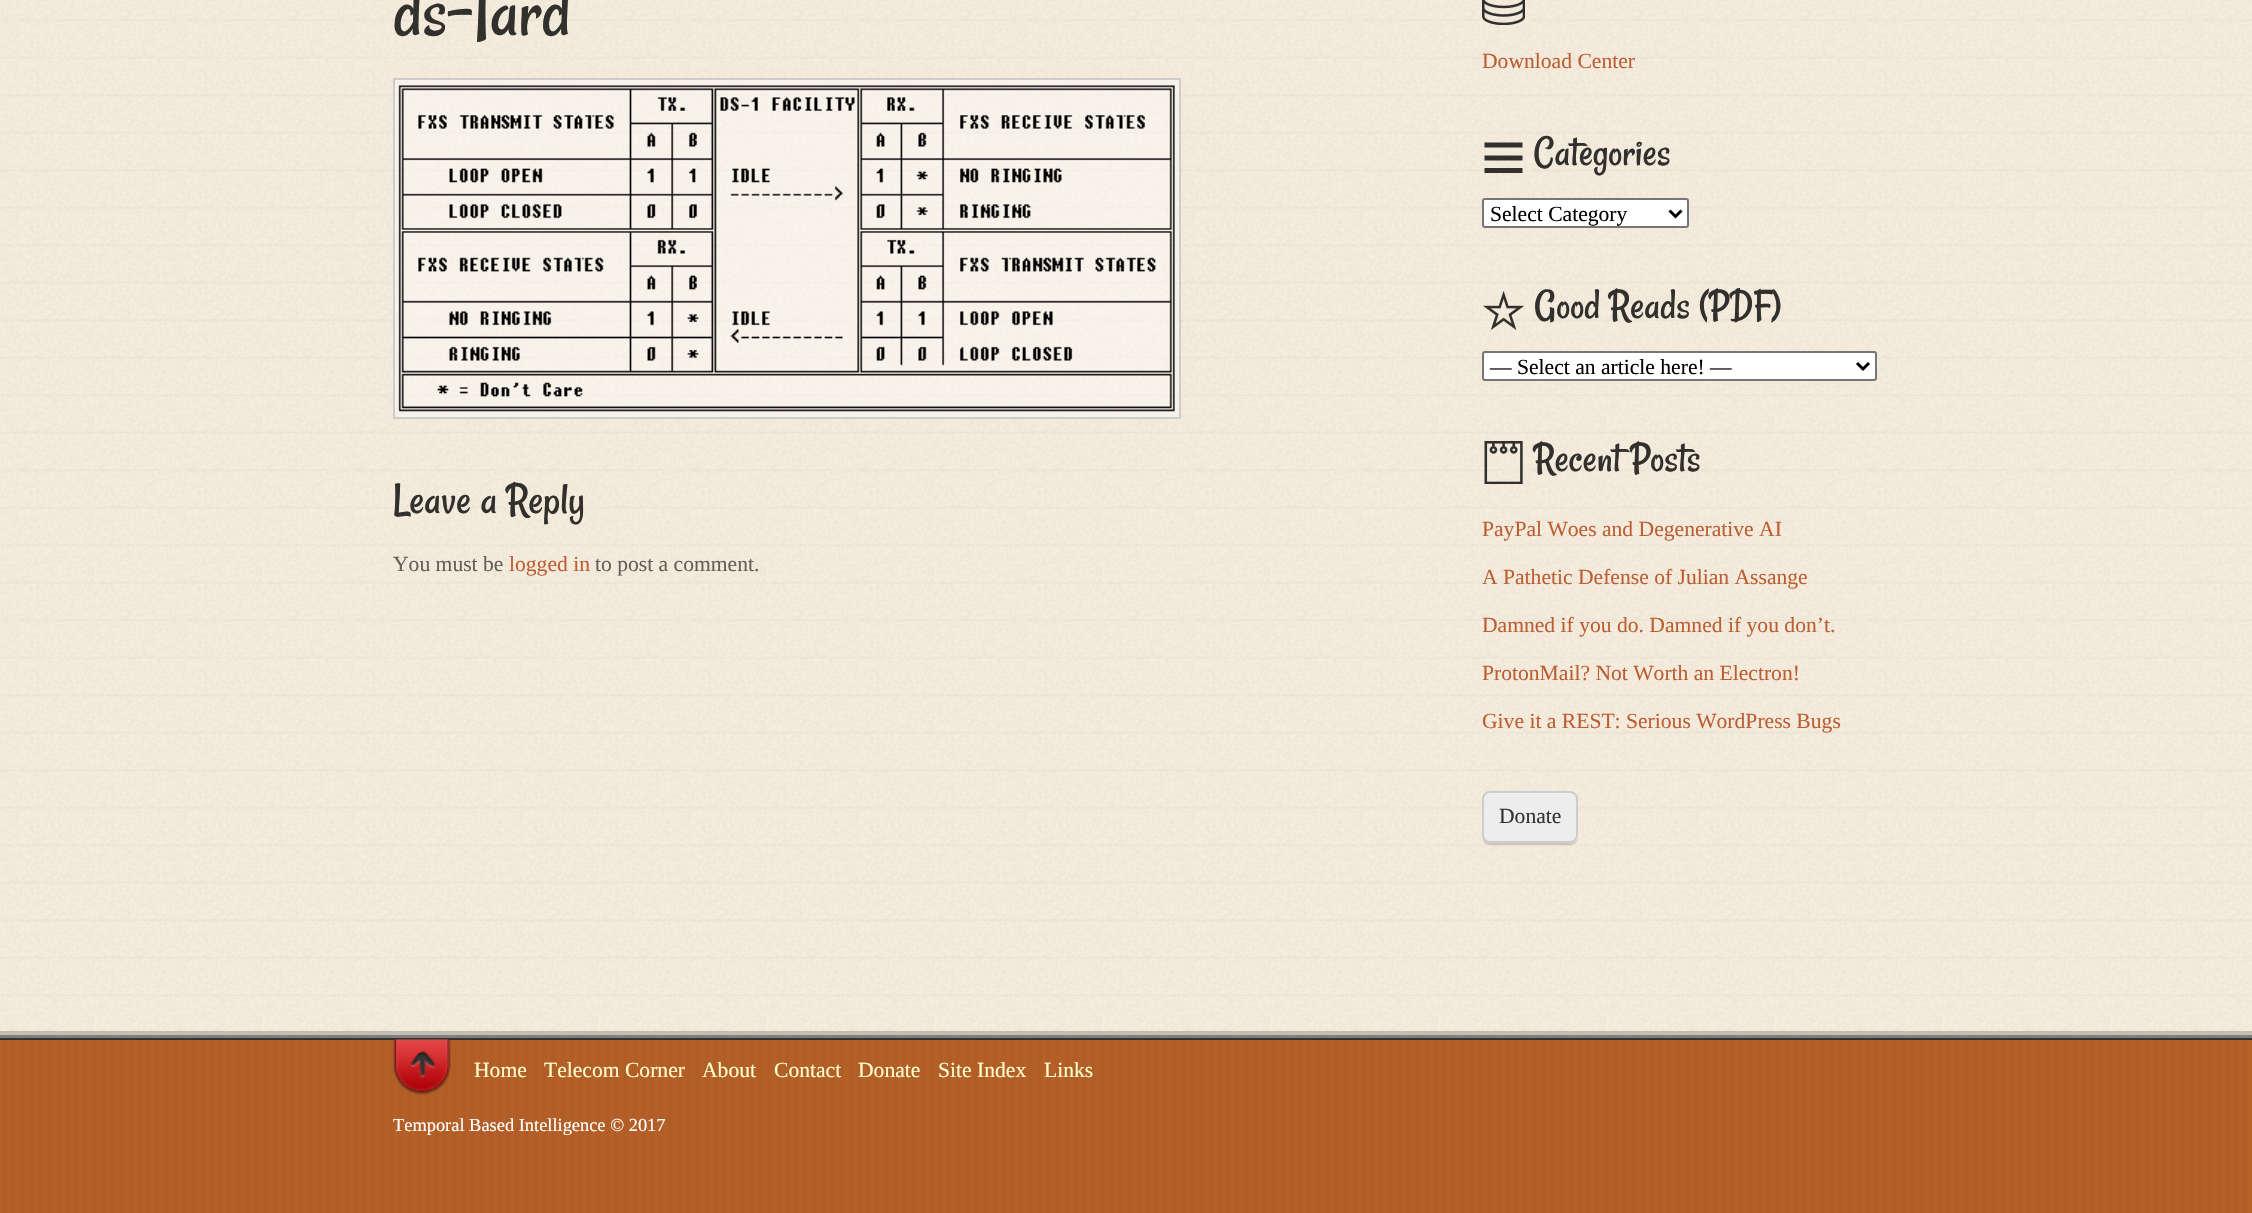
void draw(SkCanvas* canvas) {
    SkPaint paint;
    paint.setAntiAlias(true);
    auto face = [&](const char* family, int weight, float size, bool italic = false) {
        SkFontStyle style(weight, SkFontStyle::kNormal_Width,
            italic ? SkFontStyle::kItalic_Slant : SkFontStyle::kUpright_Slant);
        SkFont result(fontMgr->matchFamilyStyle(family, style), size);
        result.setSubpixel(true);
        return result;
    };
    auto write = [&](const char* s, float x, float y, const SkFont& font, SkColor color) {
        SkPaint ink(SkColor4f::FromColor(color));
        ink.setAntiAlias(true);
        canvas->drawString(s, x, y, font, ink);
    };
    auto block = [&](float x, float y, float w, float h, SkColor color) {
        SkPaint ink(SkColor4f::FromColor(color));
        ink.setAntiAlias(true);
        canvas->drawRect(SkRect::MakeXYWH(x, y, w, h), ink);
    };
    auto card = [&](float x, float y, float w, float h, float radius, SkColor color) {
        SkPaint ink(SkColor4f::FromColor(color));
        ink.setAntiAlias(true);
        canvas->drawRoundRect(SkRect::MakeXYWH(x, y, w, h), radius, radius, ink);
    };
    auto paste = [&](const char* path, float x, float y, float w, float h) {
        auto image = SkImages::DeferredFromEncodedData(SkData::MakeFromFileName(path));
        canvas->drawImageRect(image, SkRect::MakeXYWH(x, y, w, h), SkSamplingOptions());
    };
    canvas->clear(SkColorSetRGB(246, 237, 223));
    paste("pic1.png", 0, 0, 2252, 1038);
    block(0, 1035, 2252, 3, SkColorSetARGB(128, 0, 0, 0));
    block(0, 1032, 2252, 6, SkColorSetARGB(77, 255, 255, 255));
    block(0, 1031, 2252, 7, SkColorSetARGB(51, 0, 0, 0));
    auto kFont1 = face("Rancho", 400, 78);
    write("ds-1ard", 393, 35, kFont1, SkColorSetRGB(49, 48, 45));
    paint.setColor(SkColorSetARGB(102, 255, 255, 255));
    canvas->drawRect(SkRect::MakeXYWH(394, 79, 786, 339), paint);
    paint.setStyle(SkPaint::kStroke_Style);
    paint.setStrokeWidth(2);
    paint.setColor(SkColorSetRGB(204, 204, 204));
    canvas->drawRect(SkRect::MakeXYWH(394, 79, 786, 339), paint);
    paste("pic2.png", 398, 85, 777, 327);
    auto kFont2 = face("Rancho", 400, 45.5f);
    write("Leave a Reply", 393, 513, kFont2, SkColorSetRGB(49, 48, 45));
    auto kFont3 = face("Liberation Serif", 400, 21.6f);
    write("You must be", 393, 571, kFont3, SkColorSetRGB(98, 95, 89));
    write("logged in", 509, 571, kFont3, SkColorSetRGB(187, 95, 51));
    write("to post a comment.", 595, 571, kFont3, SkColorSetRGB(98, 95, 89));
    paste("pic3.png", 1482, 0, 43, 25);
    write("Download Center", 1482, 68, kFont3, SkColorSetRGB(187, 95, 51));
    paint.setStyle(SkPaint::kFill_Style);
    paint.setColor(SkColorSetRGB(49, 48, 45));
    canvas->drawPath(SkPathBuilder().moveTo(1522.5f, 142.5f).lineTo(1484.5f, 142.5f).lineTo(1484.5f, 147.5f).lineTo(1522.5f, 147.5f).close().moveTo(1484.5f, 160.5f).lineTo(1484.5f, 155.5f).lineTo(1522.5f, 155.5f).lineTo(1522.5f, 160.5f).close().moveTo(1484.5f, 173).lineTo(1484.5f, 168).lineTo(1522.5f, 168).lineTo(1522.5f, 173).close().detach(), paint);
    auto kFont4 = face("Rancho", 400, 43.25f);
    write("Categories", 1534, 165, kFont4, SkColorSetRGB(49, 48, 45));
    paint.setColor(SK_ColorWHITE);
    canvas->drawRoundRect(SkRect::MakeXYWH(1483, 199, 205, 28), 2, 2, paint);
    paint.setStyle(SkPaint::kStroke_Style);
    paint.setColor(SkColorSetRGB(118, 118, 118));
    canvas->drawRoundRect(SkRect::MakeXYWH(1483, 199, 205, 28), 2, 2, paint);
    paint.setStrokeWidth(3);
    paint.setColor(SK_ColorBLACK);
    canvas->drawPath(SkPathBuilder().moveTo(1669.5f, 210.5f).lineTo(1675.5f, 216.5f).lineTo(1681.5f, 210.5f).detach(), paint);
    write("Select Category", 1490, 221, kFont3, SK_ColorBLACK);
    paste("pic4.png", 1483, 291, 42, 39);
    write("Good Reads (PDF)", 1534, 318, kFont4, SkColorSetRGB(49, 48, 45));
    paint.setStyle(SkPaint::kFill_Style);
    paint.setColor(SK_ColorWHITE);
    canvas->drawRoundRect(SkRect::MakeXYWH(1483, 352, 393, 28), 2, 2, paint);
    paint.setStyle(SkPaint::kStroke_Style);
    paint.setStrokeWidth(2);
    paint.setColor(SkColorSetRGB(118, 118, 118));
    canvas->drawRoundRect(SkRect::MakeXYWH(1483, 352, 393, 28), 2, 2, paint);
    paint.setStrokeWidth(3);
    paint.setColor(SK_ColorBLACK);
    canvas->drawPath(SkPathBuilder().moveTo(1857, 363).lineTo(1863, 369).lineTo(1869, 363).detach(), paint);
    write("— Select an article here! —", 1490, 374, kFont3, SK_ColorBLACK);
    paste("pic5.png", 1484, 441, 39, 43);
    write("Recent Posts", 1534, 471, kFont4, SkColorSetRGB(49, 48, 45));
    write("PayPal Woes and Degenerative AI", 1482, 536, kFont3, SkColorSetRGB(187, 95, 51));
    write("A Pathetic Defense of Julian Assange", 1482, 584, kFont3, SkColorSetRGB(187, 95, 51));
    write("Damned if you do. Damned if you don’t.", 1482, 632, kFont3, SkColorSetRGB(187, 95, 51));
    write("ProtonMail? Not Worth an Electron!", 1482, 680, kFont3, SkColorSetRGB(187, 95, 51));
    write("Give it a REST: Serious WordPress Bugs", 1482, 728, kFont3, SkColorSetRGB(187, 95, 51));
    paint.setStyle(SkPaint::kFill_Style);
    paint.setColor(SkColorSetARGB(38, 0, 0, 0));
    canvas->drawPath(SkPathBuilder().moveTo(1482, 836).cubicTo(1482, 848, 1494, 845, 1503, 845).lineTo(1557, 845).cubicTo(1566, 845, 1578, 848, 1578, 836).cubicTo(1578, 840, 1575, 843, 1570, 843).lineTo(1490, 843).cubicTo(1485, 843, 1482, 840, 1482, 836).close().detach(), paint);
    card(1482, 791, 96, 52, 8, SkColorSetRGB(237, 237, 237));
    paint.setColor(SkColorSetRGB(241, 241, 241));
    canvas->drawPath(SkPathBuilder().moveTo(1490, 794).lineTo(1570, 794).cubicTo(1574, 794, 1576, 796, 1576, 800).lineTo(1576, 837).cubicTo(1576, 838, 1576, 839, 1575, 840).cubicTo(1576, 839, 1577, 838, 1577, 836).lineTo(1577, 798).cubicTo(1577, 795, 1574, 792, 1571, 792).lineTo(1490, 792).cubicTo(1487, 792, 1484, 795, 1484, 798).lineTo(1484, 800).cubicTo(1484, 796, 1486, 794, 1490, 794).close().detach(), paint);
    paint.setStyle(SkPaint::kStroke_Style);
    paint.setStrokeWidth(2);
    paint.setColor(SkColorSetRGB(204, 204, 204));
    canvas->drawRoundRect(SkRect::MakeXYWH(1483, 792, 94, 50), 7, 7, paint);
    write("Donate", 1499, 823, kFont3, SkColorSetRGB(51, 51, 51));
    block(0, 1040, 2252, 173, SkColorSetRGB(184, 97, 40));
    paste("pic6.png", 2, 1040, 2246, 173);
    block(0, 1038, 2252, 2, SkColorSetRGB(51, 51, 51));
    paste("pic7.png", 393, 1039, 59, 56);
    write("Home", 474, 1077, kFont3, SkColorSetRGB(255, 255, 204));
    write("Telecom Corner", 544, 1077, kFont3, SkColorSetRGB(255, 255, 204));
    write("About", 702, 1077, kFont3, SkColorSetRGB(255, 255, 204));
    write("Contact", 774, 1077, kFont3, SkColorSetRGB(255, 255, 204));
    write("Donate", 858, 1077, kFont3, SkColorSetRGB(255, 255, 204));
    write("Site Index", 938, 1077, kFont3, SkColorSetRGB(255, 255, 204));
    write("Links", 1044, 1077, kFont3, SkColorSetRGB(255, 255, 204));
    auto kFont5 = face("Liberation Serif", 400, 18.4f);
    write("Temporal Based Intelligence © 2017", 393, 1131, kFont5, SK_ColorWHITE);
}
